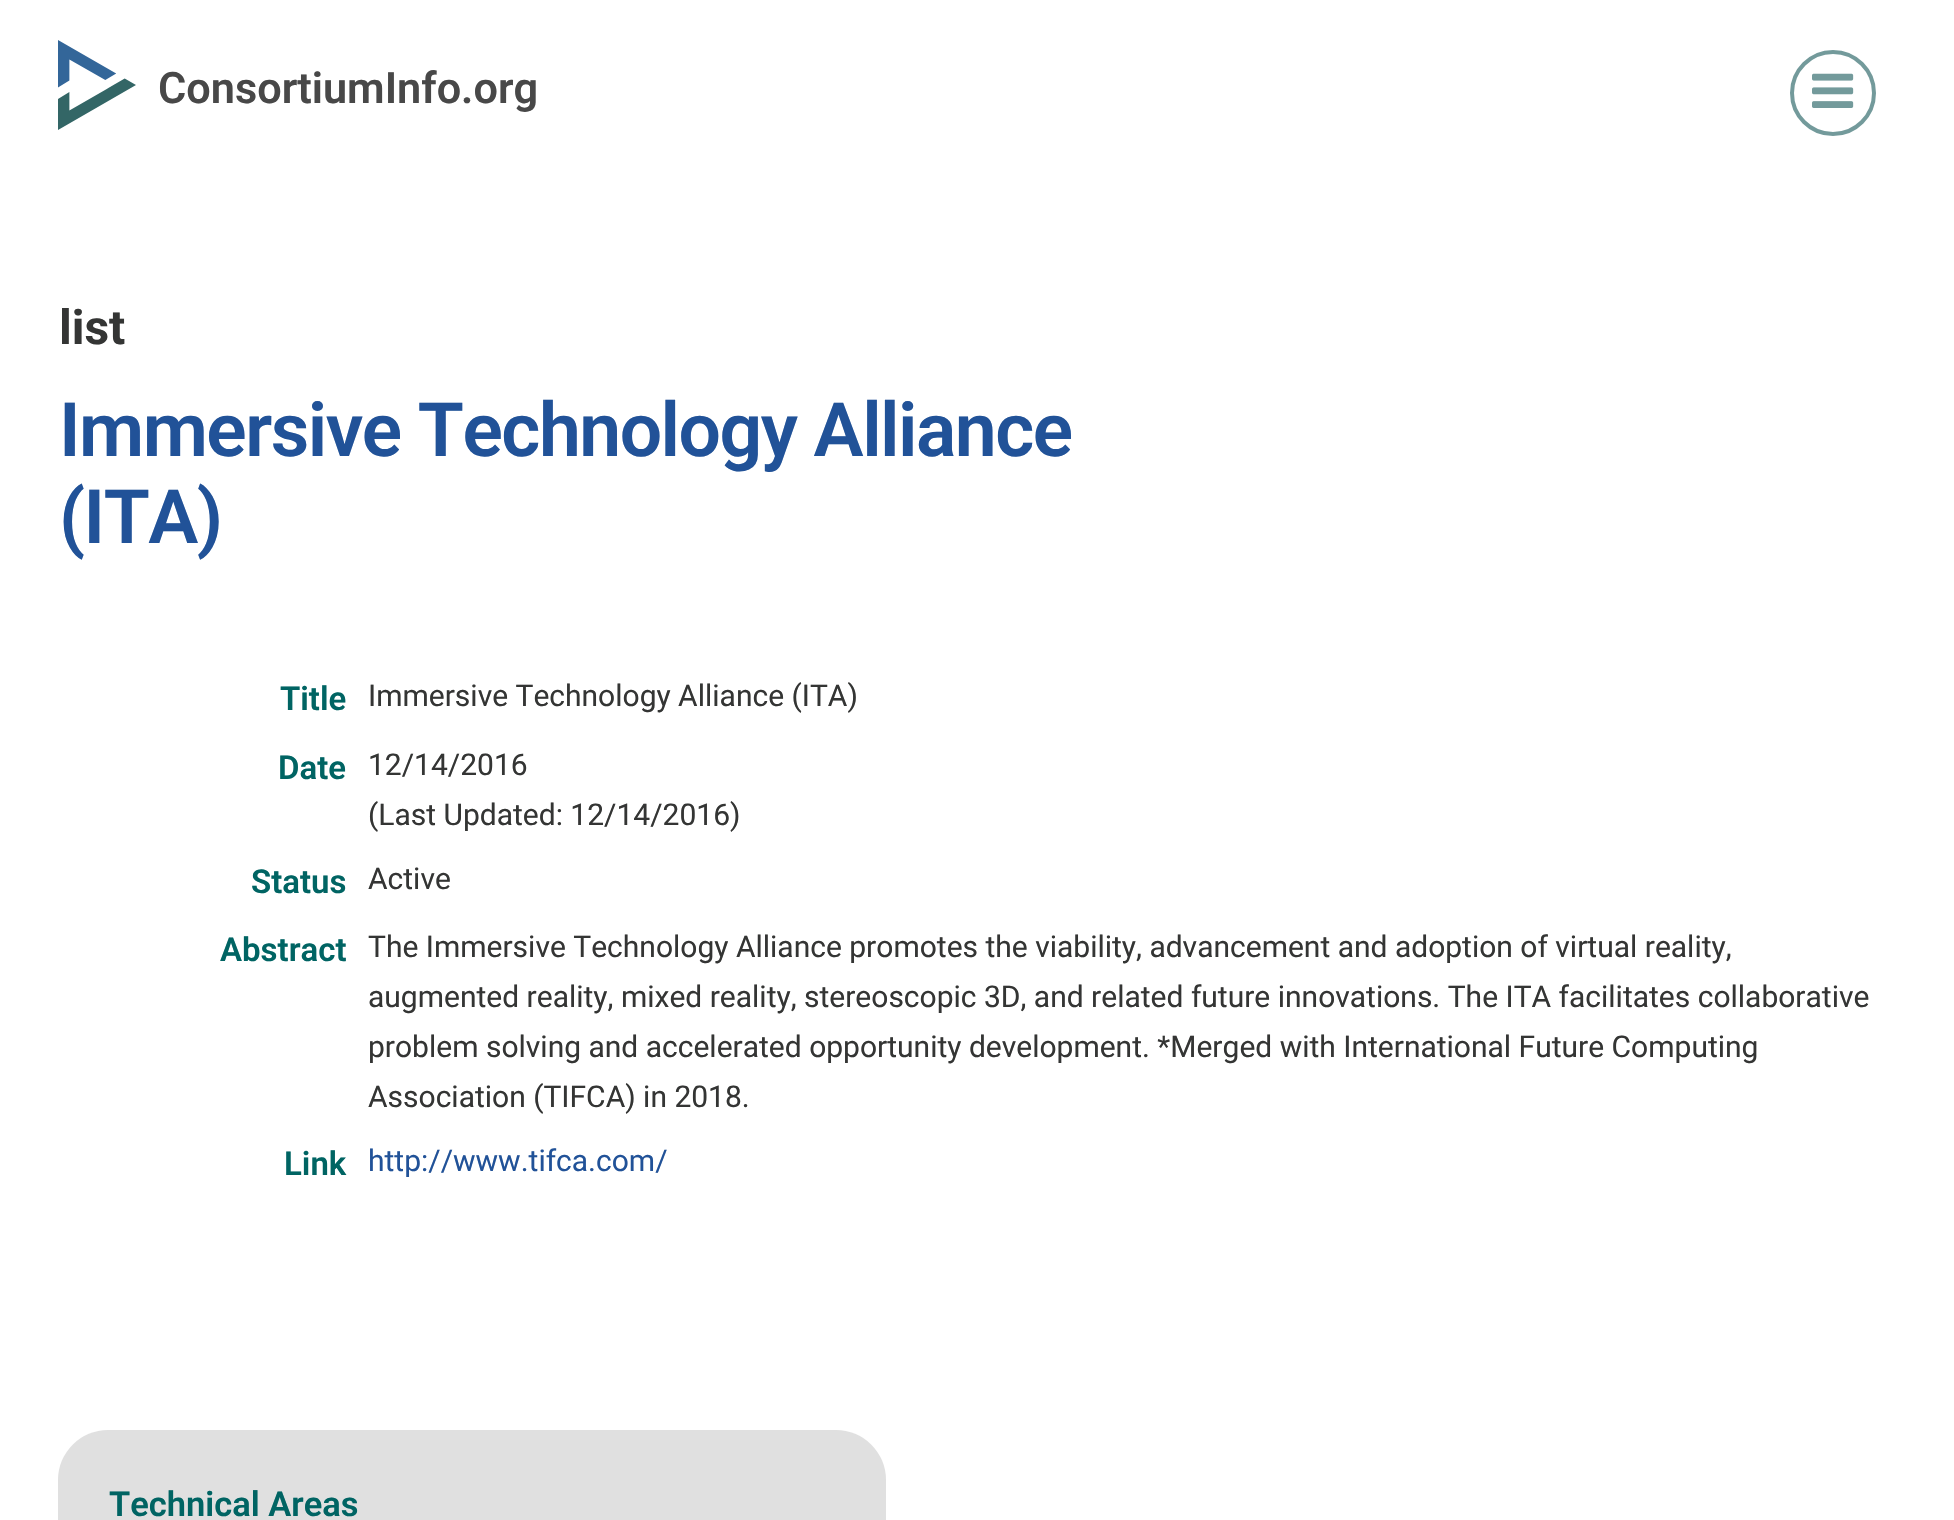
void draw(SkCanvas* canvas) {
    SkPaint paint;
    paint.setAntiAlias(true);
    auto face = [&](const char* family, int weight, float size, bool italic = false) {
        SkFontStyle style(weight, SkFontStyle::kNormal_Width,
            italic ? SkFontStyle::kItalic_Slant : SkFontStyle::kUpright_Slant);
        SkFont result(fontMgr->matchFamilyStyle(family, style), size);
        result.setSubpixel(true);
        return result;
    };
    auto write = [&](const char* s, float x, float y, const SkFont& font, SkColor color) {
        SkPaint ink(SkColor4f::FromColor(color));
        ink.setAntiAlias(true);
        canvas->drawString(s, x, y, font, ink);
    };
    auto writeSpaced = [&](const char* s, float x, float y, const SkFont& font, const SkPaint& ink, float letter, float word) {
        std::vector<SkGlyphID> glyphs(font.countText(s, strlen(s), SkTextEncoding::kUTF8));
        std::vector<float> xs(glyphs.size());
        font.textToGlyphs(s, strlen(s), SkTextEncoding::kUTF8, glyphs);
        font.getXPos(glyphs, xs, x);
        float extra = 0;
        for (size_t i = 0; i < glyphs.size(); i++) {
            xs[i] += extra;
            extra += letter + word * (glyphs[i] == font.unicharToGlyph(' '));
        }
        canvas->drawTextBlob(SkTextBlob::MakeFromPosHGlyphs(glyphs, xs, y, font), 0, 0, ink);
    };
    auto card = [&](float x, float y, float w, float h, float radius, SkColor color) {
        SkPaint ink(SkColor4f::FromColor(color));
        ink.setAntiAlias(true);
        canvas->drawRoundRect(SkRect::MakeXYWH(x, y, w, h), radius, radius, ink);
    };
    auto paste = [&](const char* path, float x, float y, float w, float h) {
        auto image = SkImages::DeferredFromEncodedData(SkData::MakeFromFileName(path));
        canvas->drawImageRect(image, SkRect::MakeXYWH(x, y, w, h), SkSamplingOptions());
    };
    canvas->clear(SK_ColorWHITE);
    paste("pic1.png", 58, 40, 78, 90);
    auto kFont1 = face("Roboto", 600, 43.25f);
    write("ConsortiumInfo.org", 158, 103, kFont1, SkColorSetRGB(72, 72, 72));
    paint.setStyle(SkPaint::kStroke_Style);
    paint.setStrokeWidth(4);
    paint.setColor(SkColorSetRGB(115, 154, 155));
    canvas->drawCircle(1833, 93, 41, paint);
    paste("pic2.png", 1812, 73, 42, 35);
    auto kFont2 = face("Roboto", 700, 48);
    write("list", 59, 344, kFont2, SkColorSetRGB(52, 53, 52));
    auto kFont3 = face("Roboto", 600, 75);
    paint.setStyle(SkPaint::kFill_Style);
    paint.setColor(SkColorSetRGB(33, 82, 152));
    writeSpaced("Immersive Technology Alliance", 59, 456, kFont3, paint, -1.5f, 0);
    writeSpaced("(ITA)", 59, 543, kFont3, paint, -1.5f, 0);
    auto kFont4 = face("Roboto", 600, 33);
    write("Title", 280, 710, kFont4, SkColorSetRGB(0, 100, 99));
    auto kFont5 = face("Roboto", 400, 30);
    write("Immersive Technology Alliance (ITA)", 368, 706, kFont5, SkColorSetRGB(52, 53, 52));
    write("Date", 278, 779, kFont4, SkColorSetRGB(0, 100, 99));
    write("12/14/2016", 368, 775, kFont5, SkColorSetRGB(52, 53, 52));
    write("(Last Updated: 12/14/2016)", 368, 825, kFont5, SkColorSetRGB(52, 53, 52));
    write("Status", 251, 893, kFont4, SkColorSetRGB(0, 100, 99));
    write("Active", 368, 889, kFont5, SkColorSetRGB(52, 53, 52));
    write("Abstract", 220, 961, kFont4, SkColorSetRGB(0, 100, 99));
    write("The Immersive Technology Alliance promotes the viability, advancement and adoption of virtual reality,", 368, 957, kFont5, SkColorSetRGB(52, 53, 52));
    write("augmented reality, mixed reality, stereoscopic 3D, and related future innovations. The ITA facilitates collaborative", 368, 1007, kFont5, SkColorSetRGB(52, 53, 52));
    write("problem solving and accelerated opportunity development. *Merged with International Future Computing", 368, 1057, kFont5, SkColorSetRGB(52, 53, 52));
    write("Association (TIFCA) in 2018.", 368, 1107, kFont5, SkColorSetRGB(52, 53, 52));
    write("Link", 284, 1175, kFont4, SkColorSetRGB(0, 100, 99));
    write("http://www.tifca.com/", 368, 1171, kFont5, SkColorSetRGB(33, 82, 152));
    card(58, 1430, 828, 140, 50, SkColorSetRGB(224, 224, 224));
    auto kFont6 = face("Roboto", 600, 34.5f);
    write("Technical Areas", 109, 1516, kFont6, SkColorSetRGB(0, 100, 99));
}
